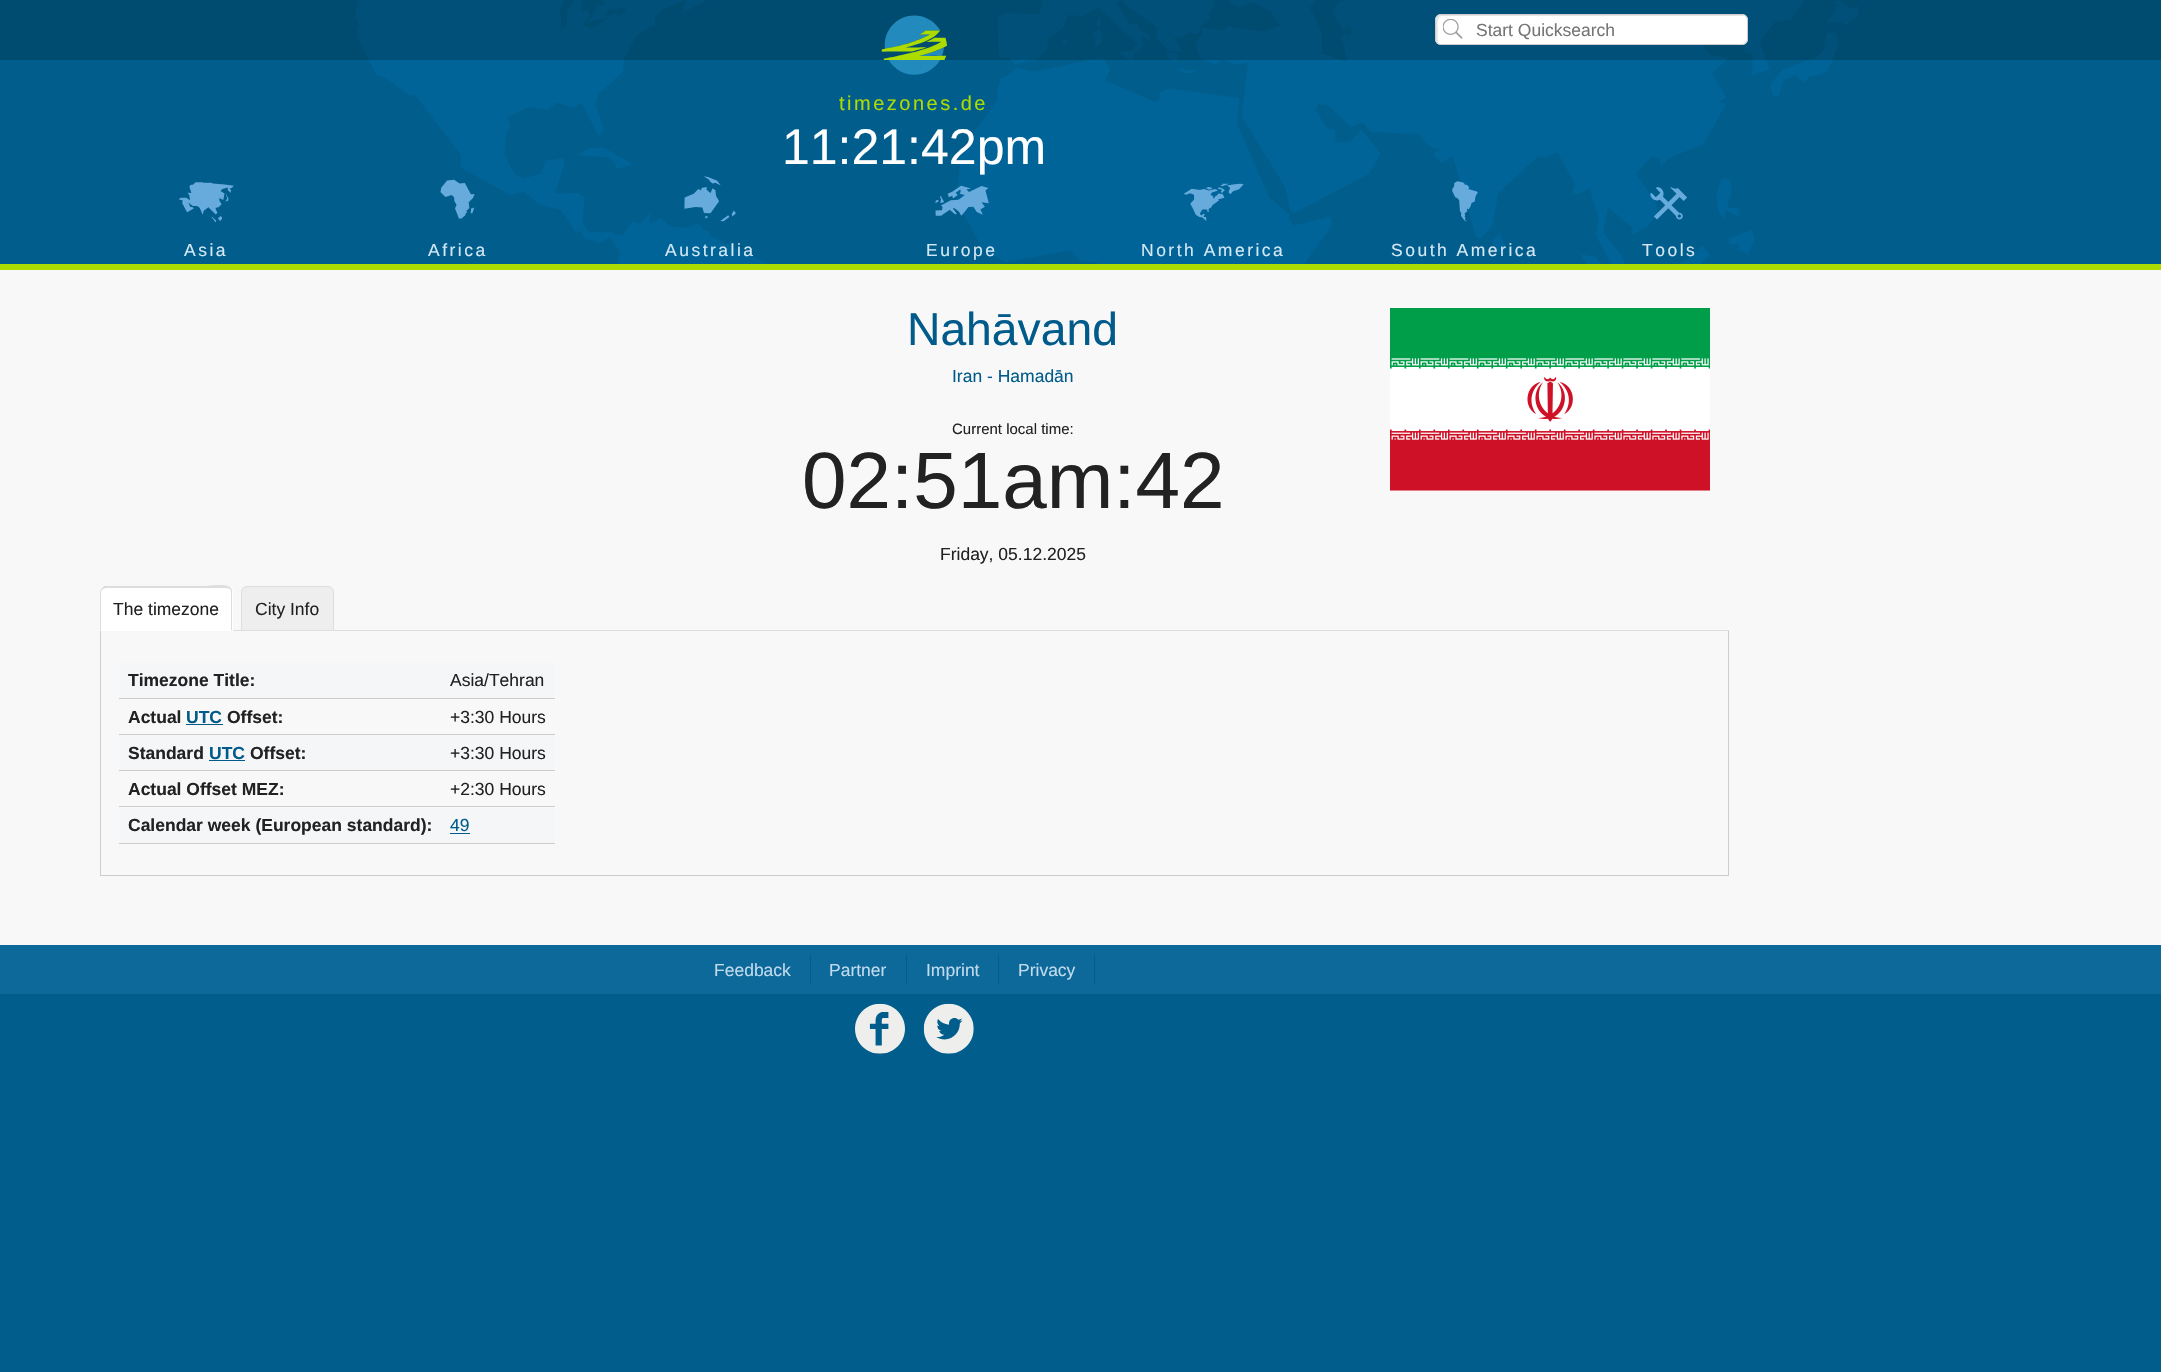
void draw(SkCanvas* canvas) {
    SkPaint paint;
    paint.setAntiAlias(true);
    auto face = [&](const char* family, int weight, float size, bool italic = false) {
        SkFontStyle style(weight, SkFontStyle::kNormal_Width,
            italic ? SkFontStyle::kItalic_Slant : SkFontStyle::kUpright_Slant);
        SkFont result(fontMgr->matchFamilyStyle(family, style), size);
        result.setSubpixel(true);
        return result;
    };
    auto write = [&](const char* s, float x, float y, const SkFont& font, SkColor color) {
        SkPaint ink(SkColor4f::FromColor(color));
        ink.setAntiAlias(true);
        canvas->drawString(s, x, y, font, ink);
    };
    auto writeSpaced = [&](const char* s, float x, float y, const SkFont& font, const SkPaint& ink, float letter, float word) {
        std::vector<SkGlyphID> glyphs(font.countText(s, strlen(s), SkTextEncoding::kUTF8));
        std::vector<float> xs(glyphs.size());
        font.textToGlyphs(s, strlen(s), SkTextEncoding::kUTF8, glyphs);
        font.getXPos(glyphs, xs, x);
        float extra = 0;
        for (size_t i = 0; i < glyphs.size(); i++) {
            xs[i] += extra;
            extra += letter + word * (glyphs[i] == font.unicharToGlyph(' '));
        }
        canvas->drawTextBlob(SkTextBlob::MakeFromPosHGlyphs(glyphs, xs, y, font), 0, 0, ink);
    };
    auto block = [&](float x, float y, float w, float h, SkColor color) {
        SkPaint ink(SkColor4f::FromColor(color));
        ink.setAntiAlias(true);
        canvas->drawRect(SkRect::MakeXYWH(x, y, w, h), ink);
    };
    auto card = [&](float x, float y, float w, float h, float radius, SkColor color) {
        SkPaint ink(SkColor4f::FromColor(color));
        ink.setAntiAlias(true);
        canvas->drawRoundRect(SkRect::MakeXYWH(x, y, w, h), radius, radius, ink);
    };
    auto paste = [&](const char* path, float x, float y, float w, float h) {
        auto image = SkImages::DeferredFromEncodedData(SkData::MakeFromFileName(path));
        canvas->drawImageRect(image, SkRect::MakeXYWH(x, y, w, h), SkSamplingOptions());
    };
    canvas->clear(SkColorSetRGB(0, 93, 140));
    paste("pic1.png", 355, 0, 1504, 264);
    block(0, 264, 2161, 6, SkColorSetRGB(172, 219, 0));
    block(0, 0, 2161, 60, SkColorSetARGB(51, 0, 0, 0));
    card(1435, 14, 313, 31, 6, SK_ColorWHITE);
    paste("pic2.png", 1443, 19, 20, 20);
    paint.setColor(SkColorSetRGB(229, 229, 229));
    canvas->drawPath(SkPathBuilder().moveTo(1442, 16).lineTo(1742, 16).lineTo(1745, 16).cubicTo(1744, 16, 1742, 15, 1741, 15).lineTo(1441, 15).cubicTo(1438, 15, 1436, 17, 1436, 20).lineTo(1436, 39).cubicTo(1436, 41, 1437, 43, 1439, 44).cubicTo(1437, 41, 1438, 34, 1438, 30).cubicTo(1438, 27, 1436, 16, 1442, 16).close().detach(), paint);
    paint.setStyle(SkPaint::kStroke_Style);
    paint.setStrokeWidth(1);
    paint.setColor(SkColorSetRGB(204, 204, 204));
    canvas->drawRoundRect(SkRect::MakeXYWH(1435.5f, 14.5f, 312, 30), 5.5f, 5.5f, paint);
    auto kFont1 = face("Liberation Sans", 400, 17.5f);
    write("Start Quicksearch", 1476, 36, kFont1, SkColorSetRGB(117, 117, 117));
    paste("pic3.png", 881, 15, 66, 60);
    auto kFont2 = face("Liberation Sans", 400, 20);
    paint.setStyle(SkPaint::kFill_Style);
    paint.setColor(SkColorSetRGB(172, 219, 0));
    writeSpaced("timezones.de", 839, 110, kFont2, paint, 2.5f, 0);
    auto kFont3 = face("Liberation Sans", 400, 50);
    write("11:21:42pm", 782, 164, kFont3, SK_ColorWHITE);
    paste("pic4.png", 178, 182, 56, 41);
    paint.setColor(SkColorSetRGB(211, 231, 245));
    writeSpaced("Asia", 184, 256, kFont1, paint, 2.5f, 0);
    paste("pic5.png", 440, 179, 35, 40);
    writeSpaced("Africa", 428, 256, kFont1, paint, 2.5f, 0);
    paste("pic6.png", 684, 176, 52, 46);
    writeSpaced("Australia", 665, 256, kFont1, paint, 2.5f, 0);
    paste("pic7.png", 935, 185, 54, 31);
    writeSpaced("Europe", 926, 256, kFont1, paint, 2.5f, 0);
    paste("pic8.png", 1184, 183, 60, 38);
    writeSpaced("North America", 1141, 256, kFont1, paint, 2.5f, 0);
    paste("pic9.png", 1452, 181, 26, 41);
    writeSpaced("South America", 1391, 256, kFont1, paint, 2.5f, 0);
    paste("pic10.png", 1650, 187, 37, 33);
    writeSpaced("Tools", 1642, 256, kFont1, paint, 2.5f, 0);
    block(0, 270, 2161, 675, SkColorSetRGB(248, 248, 248));
    auto kFont4 = face("Liberation Sans", 400, 46.25f);
    write("Nahāvand", 907, 345, kFont4, SkColorSetRGB(0, 91, 139));
    write("Iran - Hamadān", 952, 382, kFont1, SkColorSetRGB(0, 91, 139));
    auto kFont5 = face("Liberation Sans", 400, 15);
    write("Current local time:", 952, 434, kFont5, SkColorSetRGB(34, 34, 34));
    auto kFont6 = face("Liberation Sans", 400, 80);
    write("02:51am:42", 802, 508, kFont6, SkColorSetRGB(34, 34, 34));
    write("Friday, 05.12.2025", 940, 560, kFont1, SkColorSetRGB(34, 34, 34));
    paste("pic11.png", 1390, 308, 320, 183);
    block(233, 630, 1496, 1, SkColorSetRGB(221, 221, 221));
    paint.setColor(SK_ColorWHITE);
    canvas->drawPath(SkPathBuilder().moveTo(106, 586).lineTo(227, 586).cubicTo(230.5f, 586, 233, 588.5f, 233, 592).lineTo(233, 631).lineTo(100, 631).lineTo(100, 592).cubicTo(100, 588.5f, 102.5f, 586, 106, 586).close().detach(), paint);
    write("The timezone", 113, 615, kFont1, SkColorSetRGB(34, 34, 34));
    paint.setColor(SkColorSetRGB(221, 221, 221));
    canvas->drawPath(SkPathBuilder().moveTo(106, 588).lineTo(103, 589).lineTo(102, 588).lineTo(104, 586).lineTo(207, 586).cubicTo(209, 586, 226, 583, 231, 588).lineTo(230, 589).lineTo(226, 588).close().detach(), paint);
    canvas->drawPath(SkPathBuilder().moveTo(231, 588).cubicTo(232, 589, 232, 591, 232, 592).lineTo(232, 631).lineTo(231, 630).lineTo(231, 592).cubicTo(231, 591, 230, 590, 230, 589).close().detach(), paint);
    paint.setColor(SK_ColorWHITE);
    canvas->drawPath(SkPathBuilder().moveTo(232, 631).lineTo(100, 631).lineTo(101, 630).lineTo(231, 630).close().detach(), paint);
    paint.setColor(SkColorSetRGB(221, 221, 221));
    canvas->drawPath(SkPathBuilder().moveTo(100, 592).lineTo(100, 631).lineTo(101, 630).lineTo(101, 592).cubicTo(101, 591, 102, 590, 103, 589).lineTo(102, 588).cubicTo(101, 589, 100, 591, 100, 592).close().detach(), paint);
    paint.setColor(SkColorSetRGB(238, 238, 238));
    canvas->drawPath(SkPathBuilder().moveTo(247, 586.5f).lineTo(328, 586.5f).cubicTo(331, 586.5f, 333.5f, 589, 333.5f, 592).lineTo(333.5f, 630.5f).lineTo(241.5f, 630.5f).lineTo(241.5f, 592).cubicTo(241.5f, 589, 244, 586.5f, 247, 586.5f).close().detach(), paint);
    paint.setStyle(SkPaint::kStroke_Style);
    paint.setColor(SkColorSetRGB(221, 221, 221));
    canvas->drawPath(SkPathBuilder().moveTo(247, 586.5f).lineTo(328, 586.5f).cubicTo(331, 586.5f, 333.5f, 589, 333.5f, 592).lineTo(333.5f, 630.5f).lineTo(241.5f, 630.5f).lineTo(241.5f, 592).cubicTo(241.5f, 589, 244, 586.5f, 247, 586.5f).close().detach(), paint);
    write("City Info", 255, 615, kFont1, SkColorSetRGB(34, 34, 34));
    block(1728, 631, 1, 245, SkColorSetRGB(204, 204, 204));
    block(100, 875, 1629, 1, SkColorSetRGB(204, 204, 204));
    block(100, 631, 1, 245, SkColorSetRGB(204, 204, 204));
    block(120, 663, 435, 35, SkColorSetRGB(244, 246, 248));
    block(119, 698, 436, 1, SkColorSetRGB(204, 204, 204));
    auto kFont7 = face("Liberation Sans", 700, 17.5f);
    write("Timezone Title:", 128, 686, kFont7, SkColorSetRGB(34, 34, 34));
    write("Asia/Tehran", 450, 686, kFont1, SkColorSetRGB(34, 34, 34));
    block(119, 734, 436, 1, SkColorSetRGB(204, 204, 204));
    write("Actual", 128, 723, kFont7, SkColorSetRGB(34, 34, 34));
    write("UTC", 186, 723, kFont7, SkColorSetRGB(0, 91, 139));
    block(186, 724, 37, 1, SkColorSetRGB(0, 91, 139));
    write("Offset:", 227, 723, kFont7, SkColorSetRGB(34, 34, 34));
    write("+3:30 Hours", 450, 723, kFont1, SkColorSetRGB(34, 34, 34));
    block(120, 735, 435, 35, SkColorSetRGB(244, 246, 248));
    block(119, 770, 436, 1, SkColorSetRGB(204, 204, 204));
    write("Standard", 128, 759, kFont7, SkColorSetRGB(34, 34, 34));
    write("UTC", 209, 759, kFont7, SkColorSetRGB(0, 91, 139));
    block(209, 760, 36, 1, SkColorSetRGB(0, 91, 139));
    write("Offset:", 250, 759, kFont7, SkColorSetRGB(34, 34, 34));
    write("+3:30 Hours", 450, 759, kFont1, SkColorSetRGB(34, 34, 34));
    block(119, 806, 436, 1, SkColorSetRGB(204, 204, 204));
    write("Actual Offset MEZ:", 128, 795, kFont7, SkColorSetRGB(34, 34, 34));
    write("+2:30 Hours", 450, 795, kFont1, SkColorSetRGB(34, 34, 34));
    block(120, 808, 435, 35, SkColorSetRGB(244, 246, 248));
    block(119, 843, 436, 1, SkColorSetRGB(204, 204, 204));
    write("Calendar week (European standard):", 128, 831, kFont7, SkColorSetRGB(34, 34, 34));
    write("49", 450, 831, kFont1, SkColorSetRGB(0, 91, 139));
    block(450, 833, 20, 1, SkColorSetRGB(0, 91, 139));
    block(0, 945, 2161, 49, SkColorSetRGB(14, 105, 155));
    block(810, 955, 1, 30, SkColorSetRGB(0, 93, 140));
    write("Feedback", 714, 976, kFont1, SkColorSetRGB(193, 219, 237));
    block(906, 955, 1, 30, SkColorSetRGB(0, 93, 140));
    write("Partner", 829, 976, kFont1, SkColorSetRGB(193, 219, 237));
    block(998, 955, 1, 30, SkColorSetRGB(0, 93, 140));
    write("Imprint", 926, 976, kFont1, SkColorSetRGB(193, 219, 237));
    block(1094, 955, 1, 30, SkColorSetRGB(0, 93, 140));
    write("Privacy", 1018, 976, kFont1, SkColorSetRGB(193, 219, 237));
    paste("pic12.png", 855, 1003, 50, 51);
    paste("pic13.png", 923, 1003, 51, 51);
}
